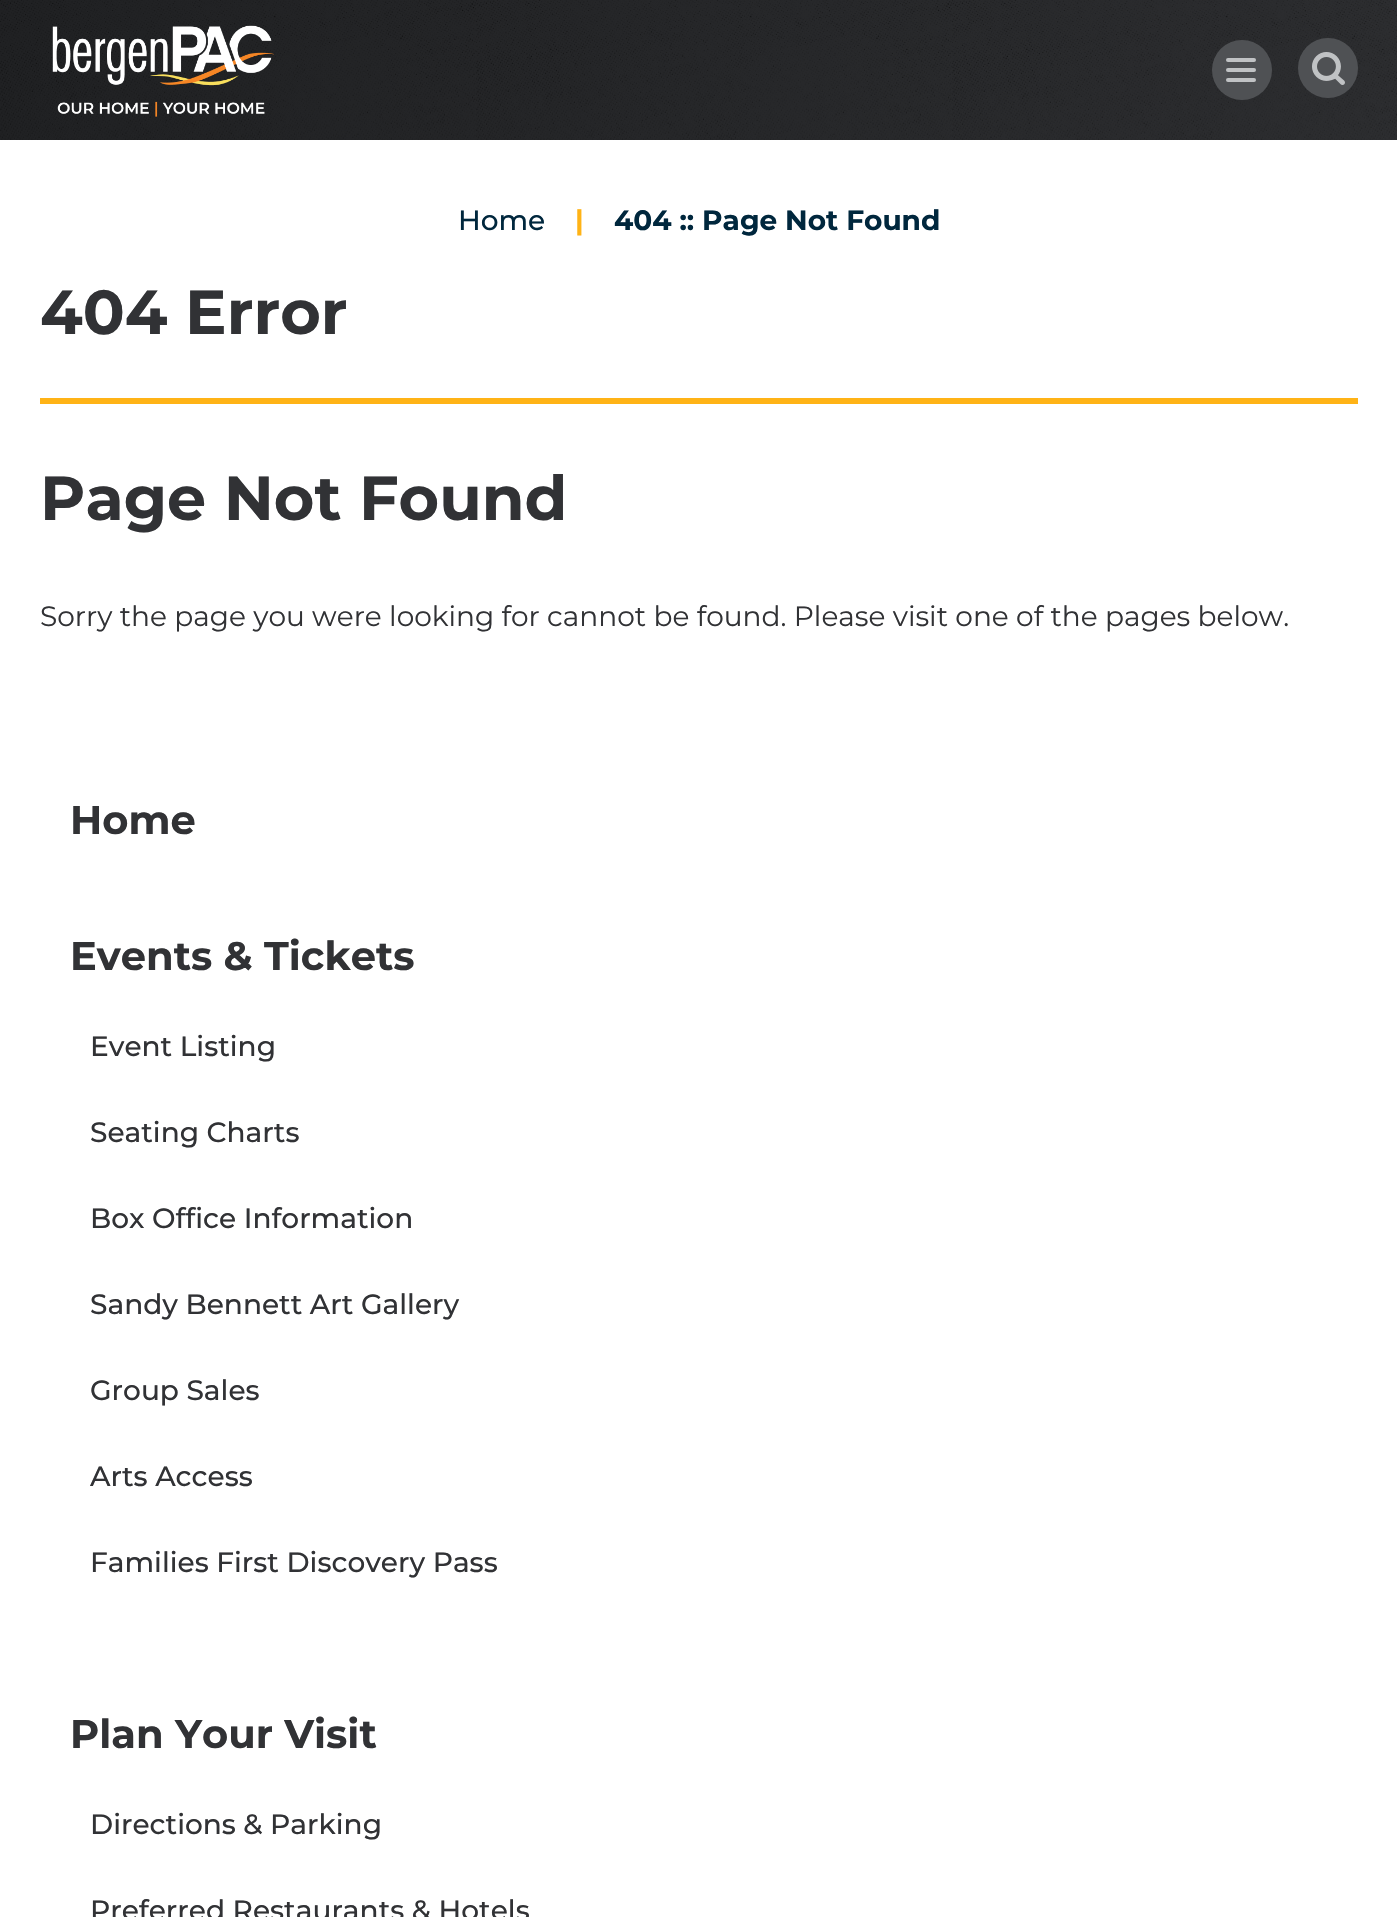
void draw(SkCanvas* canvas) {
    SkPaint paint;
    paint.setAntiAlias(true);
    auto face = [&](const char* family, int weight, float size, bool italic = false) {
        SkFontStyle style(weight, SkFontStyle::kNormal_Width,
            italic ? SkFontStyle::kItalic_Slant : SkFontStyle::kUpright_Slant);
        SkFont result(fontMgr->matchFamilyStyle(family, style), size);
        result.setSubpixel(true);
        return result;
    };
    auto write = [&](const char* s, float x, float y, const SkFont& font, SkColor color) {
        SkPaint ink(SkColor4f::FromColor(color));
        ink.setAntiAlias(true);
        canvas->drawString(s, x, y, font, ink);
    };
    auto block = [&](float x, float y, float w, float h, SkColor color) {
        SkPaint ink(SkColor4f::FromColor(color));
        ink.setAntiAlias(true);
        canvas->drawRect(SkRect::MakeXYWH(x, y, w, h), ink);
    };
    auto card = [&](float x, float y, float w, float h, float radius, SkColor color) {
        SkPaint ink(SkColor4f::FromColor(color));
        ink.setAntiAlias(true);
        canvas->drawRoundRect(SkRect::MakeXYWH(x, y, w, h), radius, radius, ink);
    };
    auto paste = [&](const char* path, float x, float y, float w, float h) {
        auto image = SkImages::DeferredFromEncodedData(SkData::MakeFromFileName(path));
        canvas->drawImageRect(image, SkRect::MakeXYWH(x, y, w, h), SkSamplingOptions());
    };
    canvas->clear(SK_ColorWHITE);
    paste("pic1.png", 0, 0, 1397, 140);
    paste("pic2.png", 52, 25, 222, 92);
    paint.setColor(SkColorSetRGB(79, 81, 84));
    canvas->drawCircle(1242, 70, 30, paint);
    card(1226, 58, 30, 4, 2, SkColorSetRGB(192, 194, 196));
    card(1226, 68, 30, 4, 2, SkColorSetRGB(192, 194, 196));
    card(1226, 78, 30, 4, 2, SkColorSetRGB(192, 194, 196));
    canvas->drawCircle(1328, 68, 30, paint);
    paste("pic3.png", 1312, 52, 33, 33);
    block(40, 398, 1318, 6, SkColorSetRGB(255, 179, 22));
    auto kFont1 = face("Montserrat", 500, 28);
    write("Home", 458, 230, kFont1, SkColorSetRGB(0, 39, 61));
    auto kFont2 = face("Montserrat", 700, 28);
    write("|", 575, 230, kFont2, SkColorSetRGB(255, 179, 22));
    write("404 :: Page Not Found", 614, 230, kFont2, SkColorSetRGB(0, 39, 61));
    auto kFont3 = face("Montserrat", 700, 62);
    write("404 Error", 40, 334, kFont3, SkColorSetRGB(49, 50, 53));
    write("Page Not Found", 40, 520, kFont3, SkColorSetRGB(49, 50, 53));
    auto kFont4 = face("Montserrat", 400, 28);
    write("Sorry the page you were looking for cannot be found. Please visit one of the pages below.", 40, 626, kFont4, SkColorSetRGB(49, 50, 53));
    auto kFont5 = face("Montserrat", 700, 40);
    write("Home", 70, 834, kFont5, SkColorSetRGB(49, 50, 53));
    write("Events & Tickets", 70, 970, kFont5, SkColorSetRGB(49, 50, 53));
    write("Event Listing", 90, 1056, kFont1, SkColorSetRGB(49, 50, 53));
    write("Seating Charts", 90, 1142, kFont1, SkColorSetRGB(49, 50, 53));
    write("Box Office Information", 90, 1228, kFont1, SkColorSetRGB(49, 50, 53));
    write("Sandy Bennett Art Gallery", 90, 1314, kFont1, SkColorSetRGB(49, 50, 53));
    write("Group Sales", 90, 1400, kFont1, SkColorSetRGB(49, 50, 53));
    write("Arts Access", 90, 1486, kFont1, SkColorSetRGB(49, 50, 53));
    write("Families First Discovery Pass", 90, 1572, kFont1, SkColorSetRGB(49, 50, 53));
    write("Plan Your Visit", 70, 1748, kFont5, SkColorSetRGB(49, 50, 53));
    write("Directions & Parking", 90, 1834, kFont1, SkColorSetRGB(49, 50, 53));
    write("Preferred Restaurants & Hotels", 90, 1920, kFont1, SkColorSetRGB(49, 50, 53));
}
